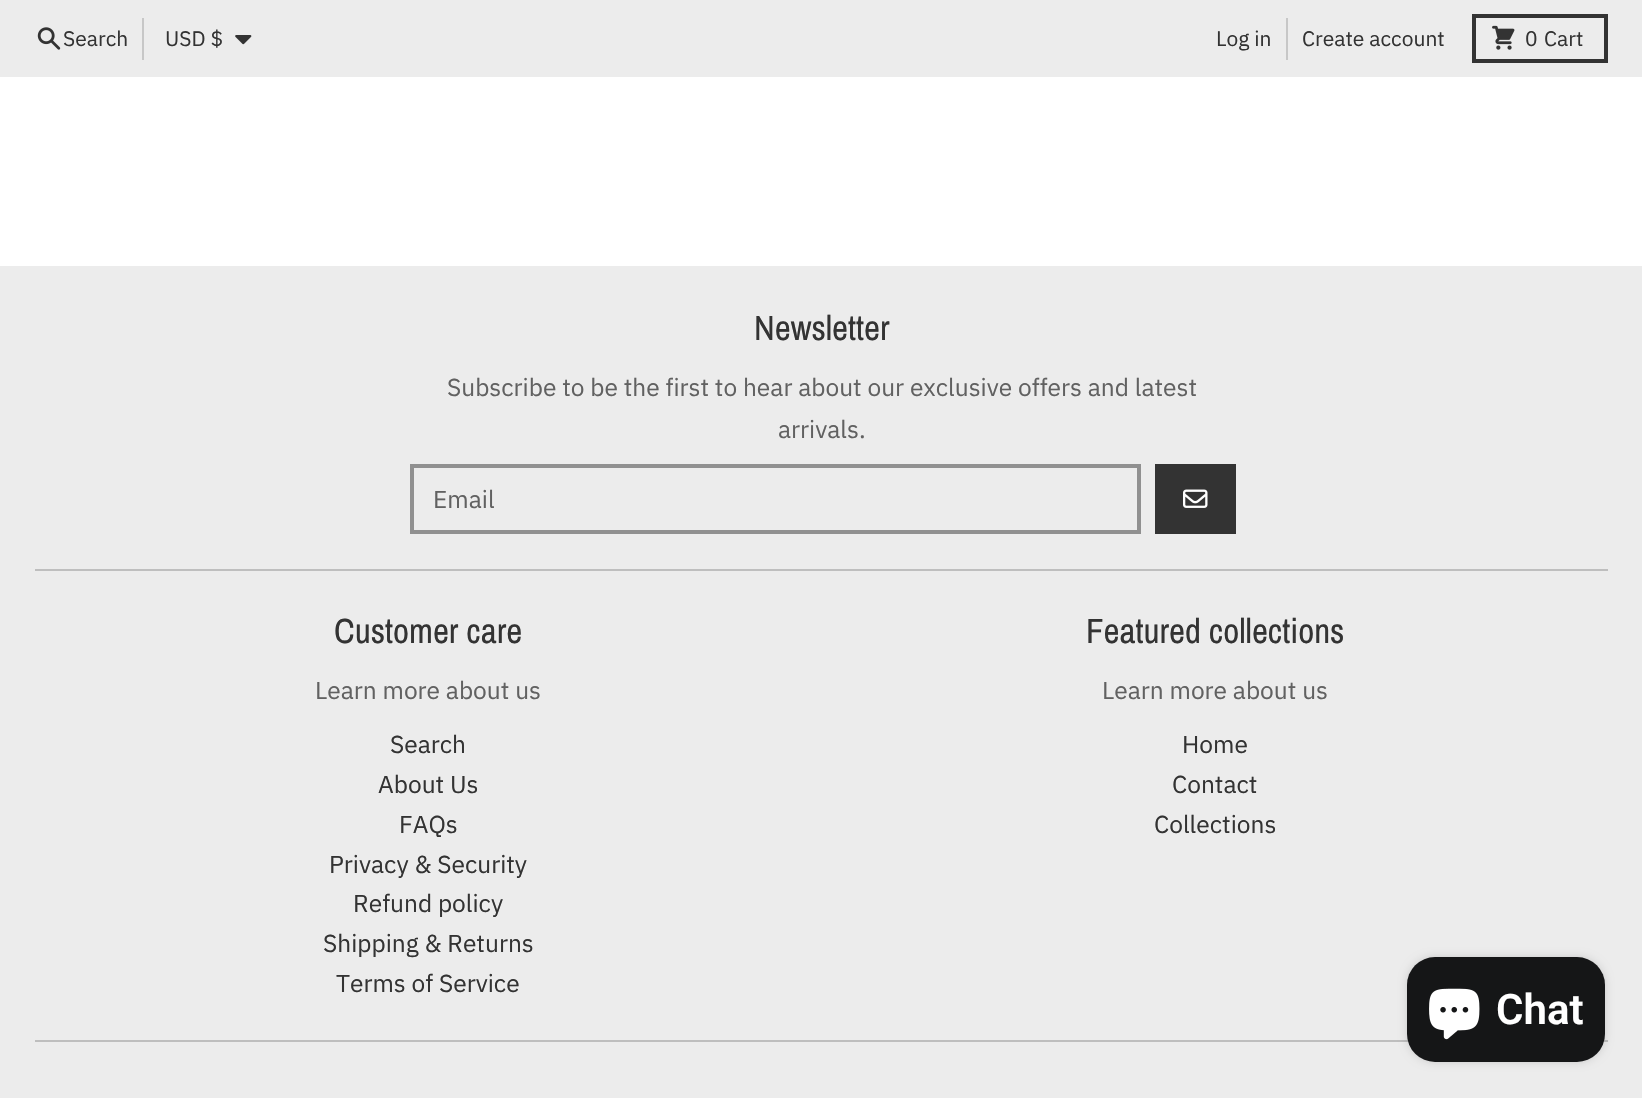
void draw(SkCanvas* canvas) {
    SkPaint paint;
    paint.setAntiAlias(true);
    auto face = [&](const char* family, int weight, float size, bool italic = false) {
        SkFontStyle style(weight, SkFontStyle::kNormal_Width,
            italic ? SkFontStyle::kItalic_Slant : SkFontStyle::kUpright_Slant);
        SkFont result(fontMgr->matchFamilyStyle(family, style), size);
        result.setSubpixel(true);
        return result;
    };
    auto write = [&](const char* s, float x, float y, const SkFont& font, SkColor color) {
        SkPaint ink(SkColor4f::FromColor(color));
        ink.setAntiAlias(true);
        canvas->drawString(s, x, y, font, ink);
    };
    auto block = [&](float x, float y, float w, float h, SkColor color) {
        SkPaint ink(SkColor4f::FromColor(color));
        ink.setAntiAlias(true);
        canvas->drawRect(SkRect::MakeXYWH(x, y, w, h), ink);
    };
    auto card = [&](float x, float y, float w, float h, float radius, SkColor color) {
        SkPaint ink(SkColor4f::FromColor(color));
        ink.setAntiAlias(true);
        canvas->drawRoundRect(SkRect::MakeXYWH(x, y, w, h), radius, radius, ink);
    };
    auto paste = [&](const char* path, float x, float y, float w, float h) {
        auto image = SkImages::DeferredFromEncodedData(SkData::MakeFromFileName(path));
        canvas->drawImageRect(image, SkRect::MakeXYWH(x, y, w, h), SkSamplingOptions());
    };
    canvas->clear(SkColorSetRGB(236, 236, 236));
    paste("pic1.png", 37, 27, 24, 23);
    auto kFont1 = face("IBM Plex Sans", 400, 21);
    write("Search", 63, 46, kFont1, SkColorSetRGB(51, 51, 51));
    block(142, 18, 2, 42, SkColorSetRGB(199, 199, 199));
    write("USD $", 165, 46, kFont1, SkColorSetRGB(51, 51, 51));
    paste("pic2.png", 235, 35, 17, 10);
    write("Log in", 1216, 46, kFont1, SkColorSetRGB(51, 51, 51));
    block(1286, 18, 2, 42, SkColorSetRGB(199, 199, 199));
    write("Create account", 1302, 46, kFont1, SkColorSetRGB(51, 51, 51));
    paint.setStyle(SkPaint::kStroke_Style);
    paint.setStrokeWidth(4);
    paint.setColor(SkColorSetRGB(51, 51, 51));
    canvas->drawRect(SkRect::MakeXYWH(1474, 16, 132, 45), paint);
    paste("pic3.png", 1492, 25, 23, 25);
    write("0", 1525, 46, kFont1, SkColorSetRGB(51, 51, 51));
    write("Cart", 1544, 46, kFont1, SkColorSetRGB(51, 51, 51));
    block(0, 77, 1642, 189, SK_ColorWHITE);
    auto kFont2 = face("Archivo Narrow", 400, 35);
    write("Newsletter", 754, 340, kFont2, SkColorSetRGB(51, 51, 51));
    auto kFont3 = face("IBM Plex Sans", 400, 24.5f);
    write("Subscribe to be the first to hear about our exclusive offers and latest", 447, 396, kFont3, SkColorSetRGB(97, 97, 97));
    write("arrivals.", 778, 438, kFont3, SkColorSetRGB(97, 97, 97));
    paint.setColor(SkColorSetRGB(144, 144, 144));
    canvas->drawRect(SkRect::MakeXYWH(412, 466, 727, 66), paint);
    write("Email", 433, 508, kFont3, SkColorSetRGB(97, 97, 97));
    block(1155, 464, 81, 70, SkColorSetRGB(51, 51, 51));
    paste("pic4.png", 1183, 489, 25, 19);
    block(35, 569, 1573, 2, SkColorSetRGB(190, 190, 190));
    write("Customer care", 334, 643, kFont2, SkColorSetRGB(51, 51, 51));
    write("Learn more about us", 315, 699, kFont3, SkColorSetRGB(97, 97, 97));
    write("Search", 390, 753, kFont3, SkColorSetRGB(51, 51, 51));
    write("About Us", 378, 793, kFont3, SkColorSetRGB(51, 51, 51));
    write("FAQs", 399, 833, kFont3, SkColorSetRGB(51, 51, 51));
    write("Privacy & Security", 329, 873, kFont3, SkColorSetRGB(51, 51, 51));
    write("Refund policy", 353, 912, kFont3, SkColorSetRGB(51, 51, 51));
    write("Shipping & Returns", 323, 952, kFont3, SkColorSetRGB(51, 51, 51));
    write("Terms of Service", 336, 992, kFont3, SkColorSetRGB(51, 51, 51));
    write("Featured collections", 1086, 643, kFont2, SkColorSetRGB(51, 51, 51));
    write("Learn more about us", 1102, 699, kFont3, SkColorSetRGB(97, 97, 97));
    write("Home", 1182, 753, kFont3, SkColorSetRGB(51, 51, 51));
    write("Contact", 1172, 793, kFont3, SkColorSetRGB(51, 51, 51));
    write("Collections", 1154, 833, kFont3, SkColorSetRGB(51, 51, 51));
    block(35, 1040, 1573, 2, SkColorSetRGB(190, 190, 190));
    paint.setStyle(SkPaint::kFill_Style);
    paint.setColor(SkColorSetARGB(38, 0, 0, 0));
    paint.setMaskFilter(SkMaskFilter::MakeBlur(kNormal_SkBlurStyle, 4.5f));
    canvas->drawRoundRect(SkRect::MakeXYWH(1407, 957, 198, 105), 28, 28, paint);
    paint.setMaskFilter(nullptr);
    card(1407, 957, 198, 105, 28, SkColorSetRGB(21, 22, 23));
    paste("pic5.png", 1429, 988, 51, 52);
    auto kFont4 = face("Roboto", 600, 42);
    write("Chat", 1496, 1024, kFont4, SK_ColorWHITE);
}
